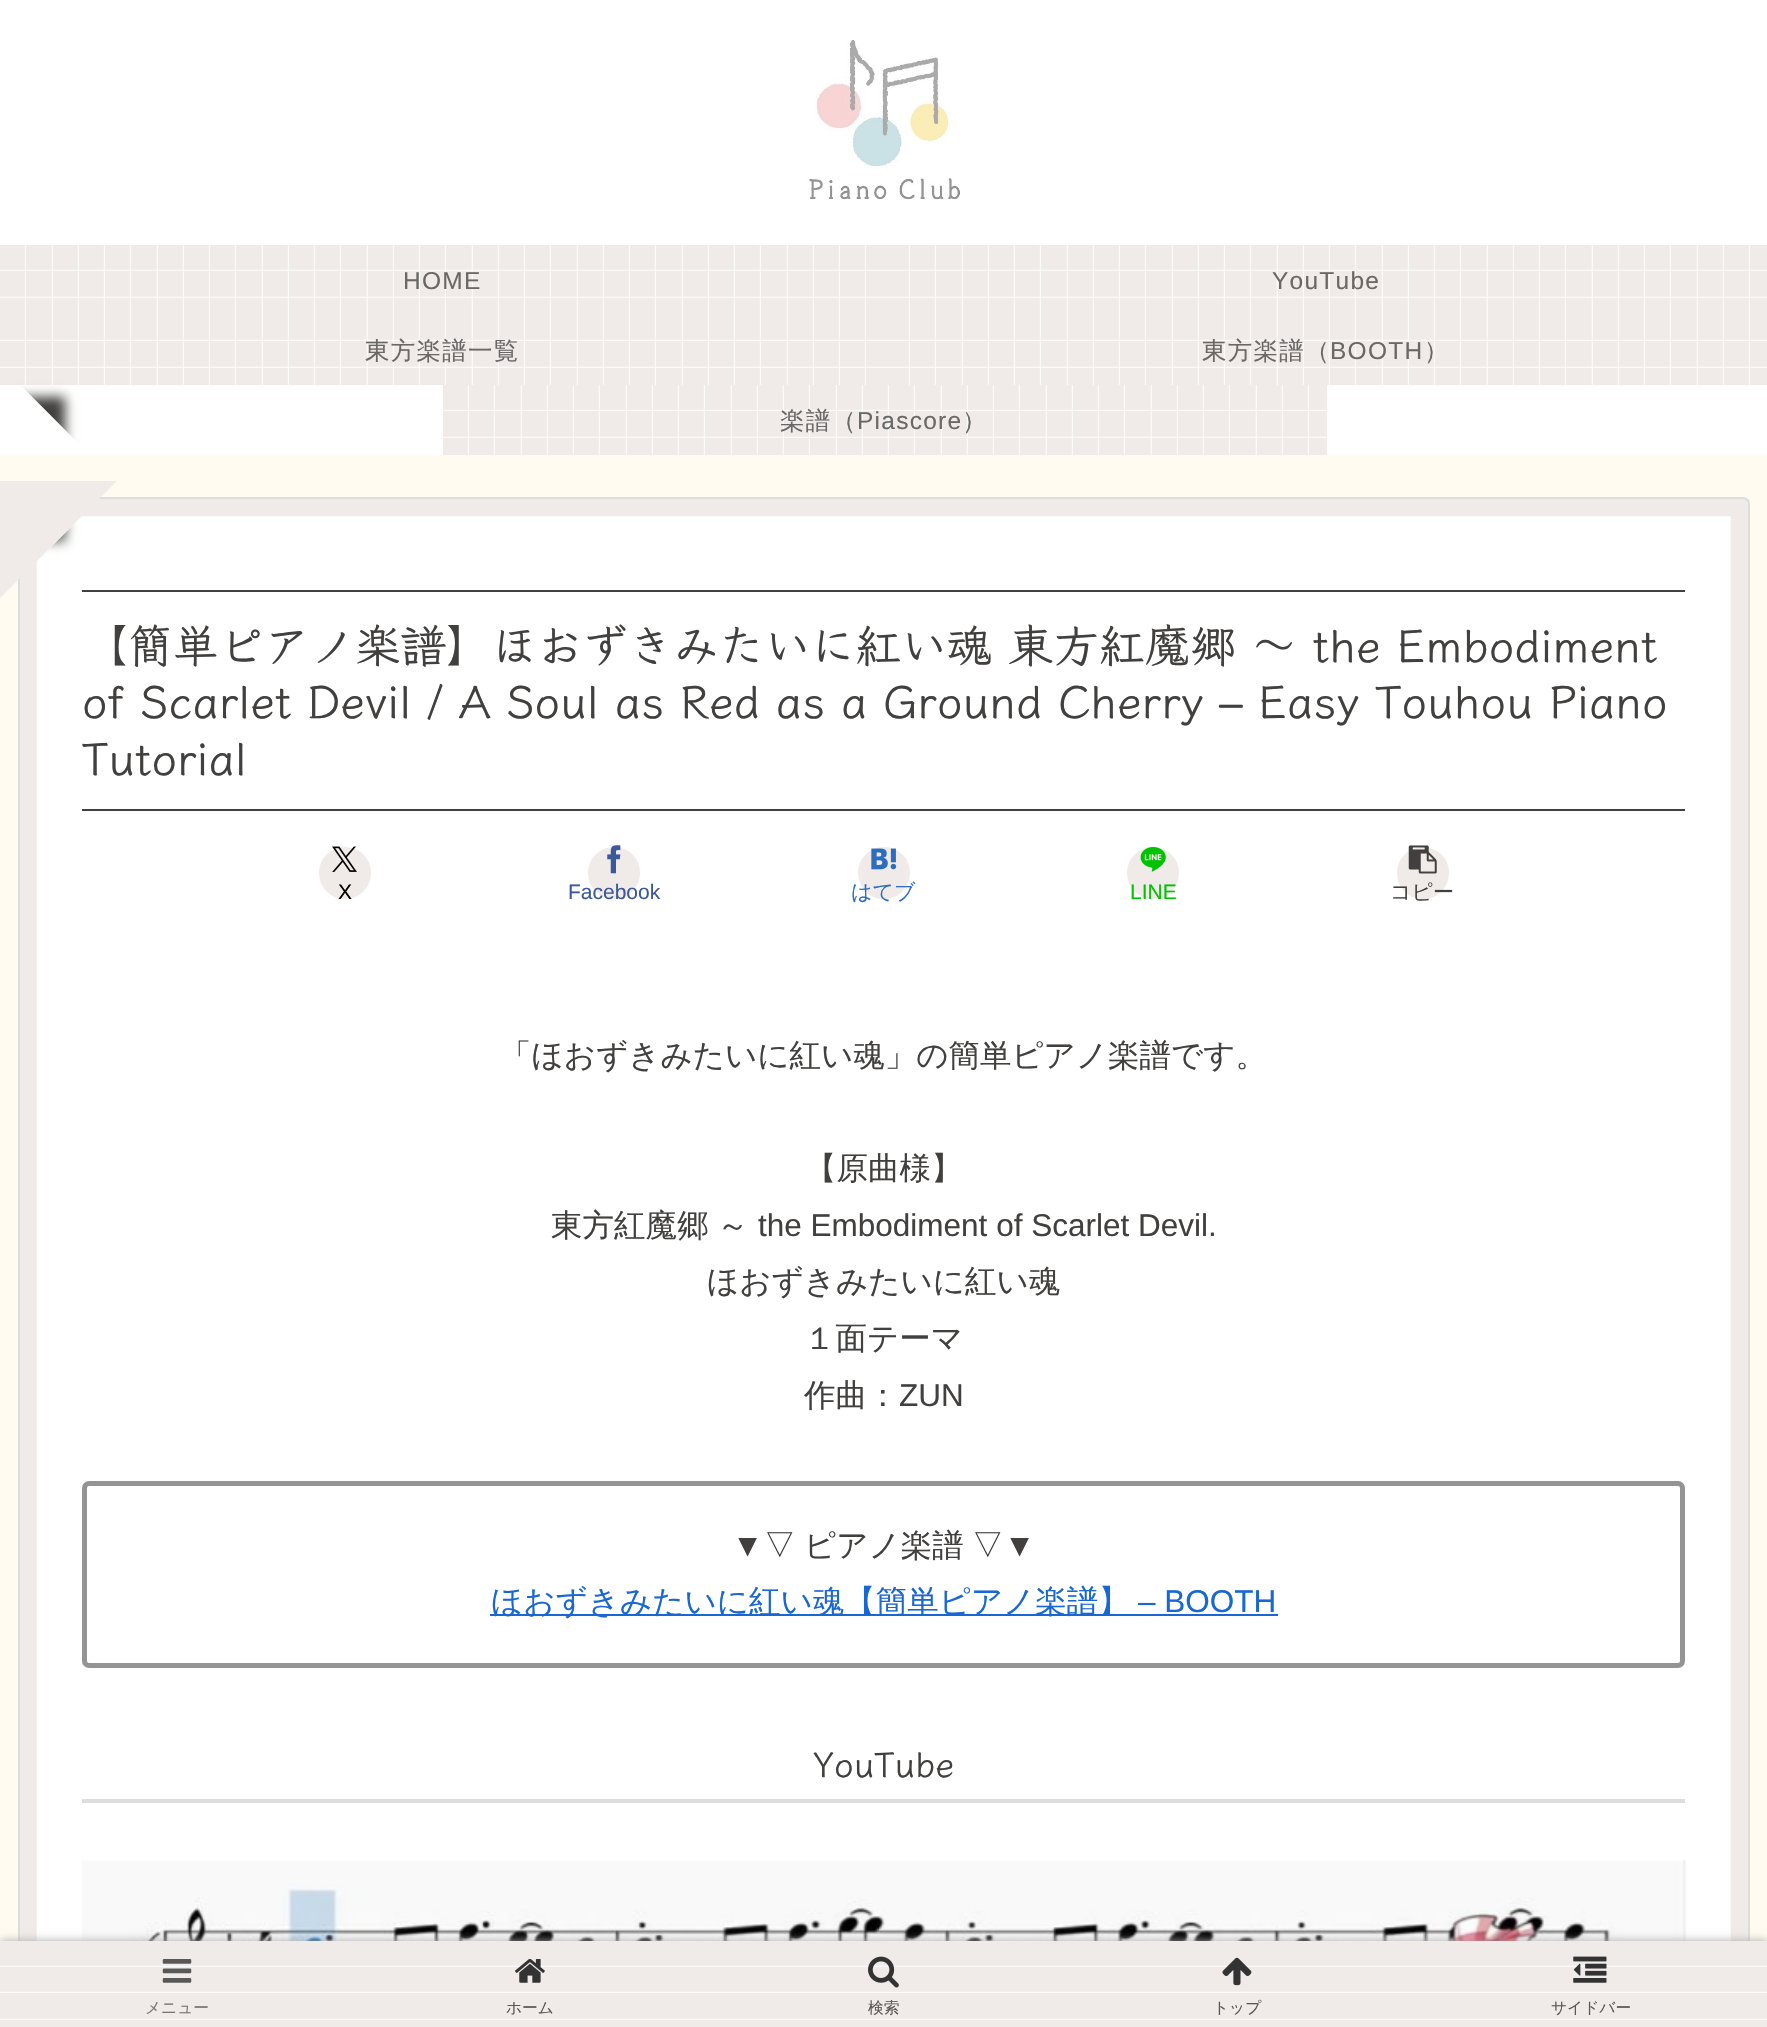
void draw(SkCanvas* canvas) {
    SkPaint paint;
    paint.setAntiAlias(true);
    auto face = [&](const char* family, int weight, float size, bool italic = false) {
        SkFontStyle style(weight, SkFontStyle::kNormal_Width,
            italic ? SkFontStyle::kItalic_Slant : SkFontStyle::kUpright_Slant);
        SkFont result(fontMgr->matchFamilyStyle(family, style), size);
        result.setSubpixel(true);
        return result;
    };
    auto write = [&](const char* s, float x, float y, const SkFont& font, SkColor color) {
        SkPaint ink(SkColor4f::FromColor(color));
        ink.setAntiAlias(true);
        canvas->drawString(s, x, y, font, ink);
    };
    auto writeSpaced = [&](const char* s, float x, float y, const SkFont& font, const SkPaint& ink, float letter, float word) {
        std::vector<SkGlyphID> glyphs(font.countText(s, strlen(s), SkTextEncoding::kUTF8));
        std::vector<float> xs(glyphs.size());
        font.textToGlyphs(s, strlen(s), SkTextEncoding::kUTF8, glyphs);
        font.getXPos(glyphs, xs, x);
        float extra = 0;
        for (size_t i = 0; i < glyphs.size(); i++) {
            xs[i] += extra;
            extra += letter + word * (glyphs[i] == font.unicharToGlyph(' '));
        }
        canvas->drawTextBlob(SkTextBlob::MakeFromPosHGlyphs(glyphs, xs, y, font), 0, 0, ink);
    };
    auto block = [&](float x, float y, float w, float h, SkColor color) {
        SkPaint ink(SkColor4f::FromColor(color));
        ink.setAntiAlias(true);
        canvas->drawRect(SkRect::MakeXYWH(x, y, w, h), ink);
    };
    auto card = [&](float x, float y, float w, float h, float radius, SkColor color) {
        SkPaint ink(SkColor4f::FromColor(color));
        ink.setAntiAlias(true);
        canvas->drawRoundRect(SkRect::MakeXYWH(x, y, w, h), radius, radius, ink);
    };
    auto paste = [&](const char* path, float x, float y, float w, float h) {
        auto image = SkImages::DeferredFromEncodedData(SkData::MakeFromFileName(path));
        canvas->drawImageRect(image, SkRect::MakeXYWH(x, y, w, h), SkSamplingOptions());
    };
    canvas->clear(SkColorSetRGB(255, 251, 240));
    block(0, 0, 1767, 455, SK_ColorWHITE);
    paste("pic1.png", 807, 40, 153, 160);
    block(0, 245, 1767, 70, SkColorSetRGB(240, 235, 232));
    paste("pic2.png", 24, 245, 842, 70);
    {
        const SkColor colors[] = {SkColorSetARGB(0, 255, 255, 255), SK_ColorWHITE};
        const float stops[] = {0.93f, 1};
        const SkPoint ends[] = {{13, 245}, {13, 271}};
        paint.setShader(SkGradientShader::MakeLinear(ends, colors, stops, 2, SkTileMode::kClamp));
        paint.setAlpha(255);
    }
    canvas->drawRect(SkRect::MakeXYWH(0, 269, 884, 2), paint);
    {
        const SkColor colors[] = {SkColorSetARGB(0, 255, 255, 255), SK_ColorWHITE};
        const float stops[] = {0.93f, 1};
        const SkPoint ends[] = {{13, 271}, {13, 298}};
        paint.setShader(SkGradientShader::MakeLinear(ends, colors, stops, 2, SkTileMode::kClamp));
        paint.setAlpha(255);
    }
    canvas->drawRect(SkRect::MakeXYWH(0, 296, 884, 2), paint);
    auto kFont1 = face("Liberation Sans", 400, 24.5f);
    paint.setShader(nullptr);
    paint.setColor(SkColorSetRGB(105, 104, 103));
    writeSpaced("HOME", 403, 289, kFont1, paint, 1.25f, 0);
    paste("pic3.png", 908, 245, 842, 70);
    {
        const SkColor colors[] = {SkColorSetARGB(0, 255, 255, 255), SK_ColorWHITE};
        const float stops[] = {0.93f, 1};
        const SkPoint ends[] = {{897, 245}, {897, 271}};
        paint.setShader(SkGradientShader::MakeLinear(ends, colors, stops, 2, SkTileMode::kClamp));
        paint.setAlpha(255);
    }
    canvas->drawRect(SkRect::MakeXYWH(884, 269, 883, 2), paint);
    {
        const SkColor colors[] = {SkColorSetARGB(0, 255, 255, 255), SK_ColorWHITE};
        const float stops[] = {0.93f, 1};
        const SkPoint ends[] = {{897, 271}, {897, 298}};
        paint.setShader(SkGradientShader::MakeLinear(ends, colors, stops, 2, SkTileMode::kClamp));
        paint.setAlpha(255);
    }
    canvas->drawRect(SkRect::MakeXYWH(884, 296, 883, 2), paint);
    paint.setShader(nullptr);
    paint.setColor(SkColorSetRGB(105, 104, 103));
    writeSpaced("YouTube", 1272, 289, kFont1, paint, 1.25f, 0);
    block(0, 315, 1767, 70, SkColorSetRGB(240, 235, 232));
    paste("pic2.png", 24, 315, 842, 70);
    {
        const SkColor colors[] = {SkColorSetARGB(0, 255, 255, 255), SK_ColorWHITE};
        const float stops[] = {0.93f, 1};
        const SkPoint ends[] = {{13, 315}, {13, 341}};
        paint.setShader(SkGradientShader::MakeLinear(ends, colors, stops, 2, SkTileMode::kClamp));
        paint.setAlpha(255);
    }
    canvas->drawRect(SkRect::MakeXYWH(0, 339, 884, 2), paint);
    {
        const SkColor colors[] = {SkColorSetARGB(0, 255, 255, 255), SK_ColorWHITE};
        const float stops[] = {0.93f, 1};
        const SkPoint ends[] = {{13, 341}, {13, 368}};
        paint.setShader(SkGradientShader::MakeLinear(ends, colors, stops, 2, SkTileMode::kClamp));
        paint.setAlpha(255);
    }
    canvas->drawRect(SkRect::MakeXYWH(0, 366, 884, 2), paint);
    auto kFont2 = face("WenQuanYi Zen Hei", 500, 24.5f);
    paint.setShader(nullptr);
    paint.setColor(SkColorSetRGB(105, 104, 103));
    writeSpaced("東方楽譜一覧", 365, 359, kFont2, paint, 1.25f, 0);
    paste("pic3.png", 908, 315, 842, 70);
    {
        const SkColor colors[] = {SkColorSetARGB(0, 255, 255, 255), SK_ColorWHITE};
        const float stops[] = {0.93f, 1};
        const SkPoint ends[] = {{897, 315}, {897, 341}};
        paint.setShader(SkGradientShader::MakeLinear(ends, colors, stops, 2, SkTileMode::kClamp));
        paint.setAlpha(255);
    }
    canvas->drawRect(SkRect::MakeXYWH(884, 339, 883, 2), paint);
    {
        const SkColor colors[] = {SkColorSetARGB(0, 255, 255, 255), SK_ColorWHITE};
        const float stops[] = {0.93f, 1};
        const SkPoint ends[] = {{897, 341}, {897, 368}};
        paint.setShader(SkGradientShader::MakeLinear(ends, colors, stops, 2, SkTileMode::kClamp));
        paint.setAlpha(255);
    }
    canvas->drawRect(SkRect::MakeXYWH(884, 366, 883, 2), paint);
    paint.setShader(nullptr);
    paint.setColor(SkColorSetRGB(105, 104, 103));
    writeSpaced("東方楽譜（", 1202, 359, kFont2, paint, 1.25f, 0);
    writeSpaced("BOOTH", 1330, 359, kFont1, paint, 1.25f, 0);
    writeSpaced("）", 1424, 359, kFont2, paint, 1.25f, 0);
    block(443, 385, 884, 70, SkColorSetRGB(240, 235, 232));
    paste("pic3.png", 467, 385, 842, 70);
    {
        const SkColor colors[] = {SkColorSetARGB(0, 255, 255, 255), SK_ColorWHITE};
        const float stops[] = {0.93f, 1};
        const SkPoint ends[] = {{456, 385}, {456, 411}};
        paint.setShader(SkGradientShader::MakeLinear(ends, colors, stops, 2, SkTileMode::kClamp));
        paint.setAlpha(255);
    }
    canvas->drawRect(SkRect::MakeXYWH(443, 409, 884, 2), paint);
    {
        const SkColor colors[] = {SkColorSetARGB(0, 255, 255, 255), SK_ColorWHITE};
        const float stops[] = {0.93f, 1};
        const SkPoint ends[] = {{456, 411}, {456, 438}};
        paint.setShader(SkGradientShader::MakeLinear(ends, colors, stops, 2, SkTileMode::kClamp));
        paint.setAlpha(255);
    }
    canvas->drawRect(SkRect::MakeXYWH(443, 436, 884, 2), paint);
    paint.setShader(nullptr);
    paint.setColor(SkColorSetRGB(105, 104, 103));
    writeSpaced("楽譜（", 780, 429, kFont2, paint, 1.25f, 0);
    writeSpaced("Piascore", 857, 429, kFont1, paint, 1.25f, 0);
    writeSpaced("）", 962, 429, kFont2, paint, 1.25f, 0);
    card(18, 497, 1732, 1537, 7, SK_ColorWHITE);
    paint.setStyle(SkPaint::kStroke_Style);
    paint.setStrokeWidth(17.5f);
    paint.setColor(SkColorSetRGB(240, 235, 232));
    canvas->drawPath(SkPathBuilder().moveTo(28, 507.5f).lineTo(1739.5f, 507.5f).lineTo(1739.5f, 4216).lineTo(28, 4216).close().detach(), paint);
    paint.setStrokeWidth(2);
    paint.setColor(SkColorSetRGB(221, 221, 221));
    canvas->drawRoundRect(SkRect::MakeXYWH(19, 498, 1730, 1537), 6, 6, paint);
    canvas->save();
    canvas->clipPath(SkPathBuilder(SkPathFillType::kEvenOdd).moveTo(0, 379).lineTo(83, 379).lineTo(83, 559).lineTo(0, 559).close().moveTo(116.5f, 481.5f).lineTo(-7, 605).lineTo(-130.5f, 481.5f).lineTo(-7, 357.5f).close().detach(), true);
    paint.setStyle(SkPaint::kFill_Style);
    paint.setColor(SkColorSetRGB(65, 64, 62));
    paint.setMaskFilter(SkMaskFilter::MakeBlur(kNormal_SkBlurStyle, 5.5f));
    canvas->drawRect(SkRect::MakeXYWH(-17, 397, 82, 144), paint);
    paint.setMaskFilter(nullptr);
    canvas->restore();
    block(82, 590, 1603, 2, SkColorSetRGB(65, 64, 62));
    paint.setColor(SkColorSetRGB(240, 235, 232));
    canvas->drawPath(SkPathBuilder().moveTo(117, 481).lineTo(-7, 605).lineTo(-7, 481).close().detach(), paint);
    block(82, 809, 1603, 2, SkColorSetRGB(65, 64, 62));
    auto kFont3 = face("Klee One", 600, 45.5f);
    write("【簡単ピアノ楽譜】ほおずきみたいに紅い魂 東方紅魔郷 ～ the Embodiment", 82, 662, kFont3, SkColorSetRGB(65, 64, 62));
    write("of Scarlet Devil / A Soul as Red as a Ground Cherry – Easy Touhou Piano", 82, 718, kFont3, SkColorSetRGB(65, 64, 62));
    write("Tutorial", 82, 775, kFont3, SkColorSetRGB(65, 64, 62));
    canvas->drawCircle(345, 873, 27, paint);
    paint.setStyle(SkPaint::kStroke_Style);
    paint.setColor(SK_ColorWHITE);
    canvas->drawCircle(345, 873, 27, paint);
    paste("pic4.png", 332, 846, 25, 26);
    auto kFont4 = face("Liberation Sans", 400, 21);
    write("X", 338, 899, kFont4, SK_ColorBLACK);
    paint.setStyle(SkPaint::kFill_Style);
    paint.setColor(SkColorSetRGB(240, 235, 232));
    canvas->drawCircle(614, 873, 27, paint);
    paint.setStyle(SkPaint::kStroke_Style);
    paint.setColor(SK_ColorWHITE);
    canvas->drawCircle(614, 873, 27, paint);
    paste("pic5.png", 607, 845, 14, 29);
    write("Facebook", 568, 899, kFont4, SkColorSetRGB(59, 89, 152));
    paint.setStyle(SkPaint::kFill_Style);
    paint.setColor(SkColorSetRGB(240, 235, 232));
    canvas->drawCircle(884, 873, 27, paint);
    paint.setStyle(SkPaint::kStroke_Style);
    paint.setColor(SK_ColorWHITE);
    canvas->drawCircle(884, 873, 27, paint);
    paste("pic6.png", 871, 848, 26, 22);
    auto kFont5 = face("WenQuanYi Zen Hei", 500, 21);
    write("はてブ", 851, 899, kFont5, SkColorSetRGB(44, 110, 189));
    paint.setStyle(SkPaint::kFill_Style);
    paint.setColor(SkColorSetRGB(240, 235, 232));
    canvas->drawCircle(1153, 873, 27, paint);
    paint.setStyle(SkPaint::kStroke_Style);
    paint.setColor(SK_ColorWHITE);
    canvas->drawCircle(1153, 873, 27, paint);
    paste("pic7.png", 1140, 846, 26, 26);
    write("LINE", 1130, 899, kFont4, SkColorSetRGB(0, 195, 0));
    paint.setStyle(SkPaint::kFill_Style);
    paint.setColor(SkColorSetRGB(240, 235, 232));
    canvas->drawCircle(1423, 873, 27, paint);
    paint.setStyle(SkPaint::kStroke_Style);
    paint.setColor(SK_ColorWHITE);
    canvas->drawCircle(1423, 873, 27, paint);
    paste("pic8.png", 1408, 845, 29, 29);
    write("コピー", 1390, 899, kFont5, SkColorSetRGB(65, 64, 62));
    auto kFont6 = face("WenQuanYi Zen Hei", 500, 31.5f);
    write("「ほおずきみたいに紅い魂」の簡単ピアノ楽譜です。", 500, 1066, kFont6, SkColorSetRGB(65, 64, 62));
    write("【原曲様】", 805, 1179, kFont6, SkColorSetRGB(65, 64, 62));
    write("東方紅魔郷", 551, 1236, kFont6, SkColorSetRGB(65, 64, 62));
    write("～", 717, 1236, kFont6, SkColorSetRGB(65, 64, 62));
    auto kFont7 = face("Liberation Sans", 400, 31.5f);
    write("the Embodiment of Scarlet Devil.", 758, 1236, kFont7, SkColorSetRGB(65, 64, 62));
    write("ほおずきみたいに紅い魂", 707, 1292, kFont6, SkColorSetRGB(65, 64, 62));
    write("１面テーマ", 804, 1349, kFont6, SkColorSetRGB(65, 64, 62));
    write("作曲：", 804, 1406, kFont6, SkColorSetRGB(65, 64, 62));
    write("ZUN", 899, 1406, kFont7, SkColorSetRGB(65, 64, 62));
    paint.setStrokeWidth(5);
    paint.setColor(SkColorSetRGB(148, 148, 149));
    canvas->drawRoundRect(SkRect::MakeXYWH(84.5f, 1483.5f, 1598, 182), 4.5f, 4.5f, paint);
    write("▼", 732, 1556, kFont7, SkColorSetRGB(65, 64, 62));
    paint.setStyle(SkPaint::kFill_Style);
    paint.setColor(SkColorSetRGB(65, 64, 62));
    writeSpaced("▽ ピアノ楽譜 ▽", 764, 1556, kFont6, paint, 0, -1);
    write("▼", 1004, 1556, kFont7, SkColorSetRGB(65, 64, 62));
    block(490, 1614, 788, 2, SkColorSetRGB(25, 103, 210));
    write("ほおずきみたいに紅い魂【簡単ピアノ楽譜】", 491, 1612, kFont6, SkColorSetRGB(25, 103, 210));
    write("– BOOTH", 1138, 1612, kFont7, SkColorSetRGB(25, 103, 210));
    block(82, 1799, 1603, 4, SkColorSetRGB(221, 221, 221));
    auto kFont8 = face("Klee One", 600, 35);
    write("YouTube", 813, 1777, kFont8, SkColorSetRGB(65, 64, 62));
    paste("pic9.png", 82, 1860, 1604, 81);
    paint.setColor(SkColorSetRGB(169, 169, 169));
    paint.setMaskFilter(SkMaskFilter::MakeBlur(kNormal_SkBlurStyle, 4.5f));
    canvas->drawRect(SkRect::MakeXYWH(0, 1941, 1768, 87), paint);
    paint.setMaskFilter(nullptr);
    block(0, 2020, 1767, 7, SkColorSetRGB(240, 235, 232));
    {
        const SkColor colors[] = {SkColorSetRGB(240, 235, 232), SK_ColorWHITE};
        const float stops[] = {0.93f, 1};
        const SkPoint ends[] = {{13, 1941}, {13, 1967}};
        paint.setShader(SkGradientShader::MakeLinear(ends, colors, stops, 2, SkTileMode::kClamp));
        paint.setAlpha(255);
    }
    canvas->drawRect(SkRect::MakeXYWH(0, 1941, 1767, 26), paint);
    {
        const SkColor colors[] = {SkColorSetRGB(240, 235, 232), SK_ColorWHITE};
        const float stops[] = {0.93f, 1};
        const SkPoint ends[] = {{13, 1967}, {13, 1993}};
        paint.setShader(SkGradientShader::MakeLinear(ends, colors, stops, 2, SkTileMode::kClamp));
        paint.setAlpha(255);
    }
    canvas->drawRect(SkRect::MakeXYWH(0, 1967, 1767, 26), paint);
    {
        const SkColor colors[] = {SkColorSetRGB(240, 235, 232), SK_ColorWHITE};
        const float stops[] = {0.93f, 1};
        const SkPoint ends[] = {{13, 1993}, {13, 2020}};
        paint.setShader(SkGradientShader::MakeLinear(ends, colors, stops, 2, SkTileMode::kClamp));
        paint.setAlpha(255);
    }
    canvas->drawRect(SkRect::MakeXYWH(0, 1993, 1767, 27), paint);
    paste("pic10.png", 162, 1959, 30, 24);
    auto kFont9 = face("WenQuanYi Zen Hei", 500, 15.75f);
    write("メニュー", 145, 2013, kFont9, SkColorSetRGB(119, 117, 116));
    paste("pic11.png", 515, 1959, 30, 24);
    write("ホーム", 506, 2013, kFont9, SkColorSetRGB(89, 88, 87));
    paste("pic12.png", 868, 1956, 31, 32);
    write("検索", 868, 2013, kFont9, SkColorSetRGB(89, 88, 87));
    paste("pic13.png", 1222, 1957, 30, 29);
    write("トップ", 1213, 2013, kFont9, SkColorSetRGB(89, 88, 87));
    paste("pic14.png", 1573, 1956, 34, 27);
    write("サイドバー", 1551, 2013, kFont9, SkColorSetRGB(89, 88, 87));
}
